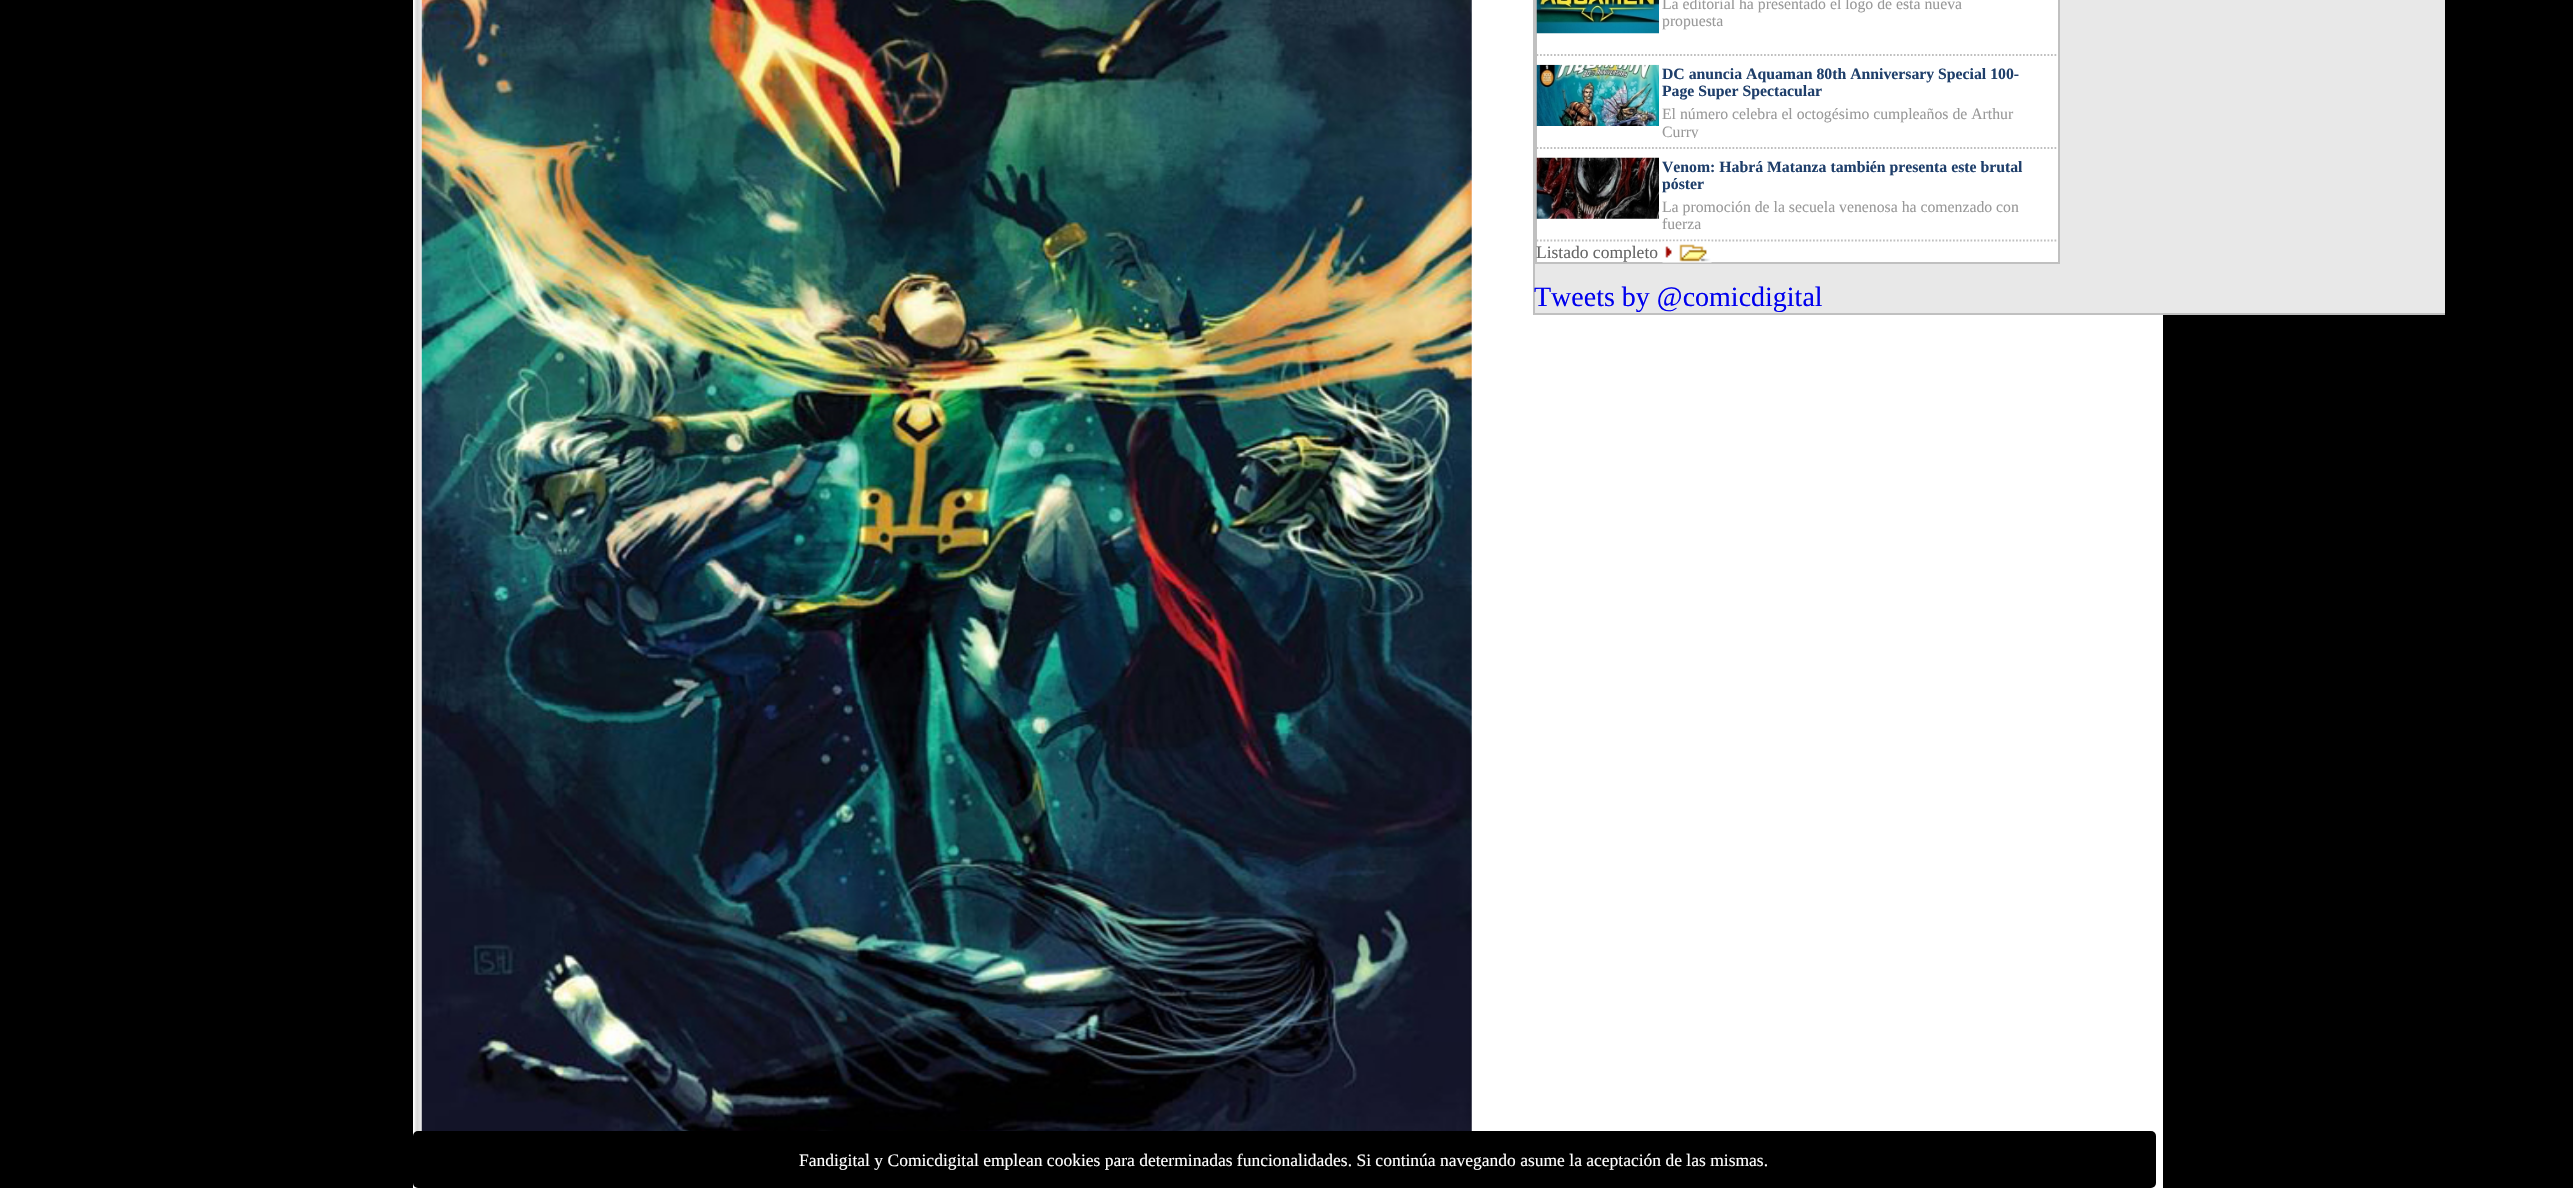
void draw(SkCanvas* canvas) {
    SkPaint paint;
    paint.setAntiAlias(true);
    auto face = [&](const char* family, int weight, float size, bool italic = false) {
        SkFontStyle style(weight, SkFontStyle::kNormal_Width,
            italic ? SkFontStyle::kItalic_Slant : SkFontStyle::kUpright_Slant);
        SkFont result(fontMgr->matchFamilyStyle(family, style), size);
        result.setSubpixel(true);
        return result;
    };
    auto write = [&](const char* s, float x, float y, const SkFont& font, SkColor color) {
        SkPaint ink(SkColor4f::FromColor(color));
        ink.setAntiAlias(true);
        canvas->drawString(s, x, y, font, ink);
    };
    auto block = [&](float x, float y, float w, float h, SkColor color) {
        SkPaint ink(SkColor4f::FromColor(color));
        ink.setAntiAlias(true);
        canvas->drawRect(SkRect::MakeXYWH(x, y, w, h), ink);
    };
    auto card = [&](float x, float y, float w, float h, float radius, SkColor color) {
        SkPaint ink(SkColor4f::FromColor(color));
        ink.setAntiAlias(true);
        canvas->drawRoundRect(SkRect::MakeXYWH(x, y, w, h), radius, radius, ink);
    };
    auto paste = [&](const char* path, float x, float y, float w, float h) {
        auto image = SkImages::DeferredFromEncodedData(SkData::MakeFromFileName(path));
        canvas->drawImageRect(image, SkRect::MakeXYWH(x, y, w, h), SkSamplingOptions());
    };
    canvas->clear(SK_ColorBLACK);
    block(413, 0, 1750, 1188, SK_ColorWHITE);
    paste("pic1.png", 414, 0, 8, 1188);
    paste("pic2.png", 421, 0, 1051, 1131);
    block(1535, 0, 910, 313, SkColorSetRGB(232, 232, 232));
    block(1533, 313, 912, 2, SkColorSetRGB(192, 192, 192));
    block(1533, 0, 2, 315, SkColorSetRGB(192, 192, 192));
    paint.setColor(SK_ColorWHITE);
    canvas->drawRect(SkRect::MakeXYWH(1536, -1, 523, 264), paint);
    paint.setStyle(SkPaint::kStroke_Style);
    paint.setStrokeWidth(2);
    paint.setColor(SkColorSetRGB(192, 192, 192));
    canvas->drawRect(SkRect::MakeXYWH(1536, -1, 523, 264), paint);
    paint.setStrokeWidth(1.8f);
    paint.setPathEffect(SkDashPathEffect::Make({{1.75f, 1.75f}}, 0));
    canvas->drawPath(SkPathBuilder().moveTo(1536.5f, 55).lineTo(2061.5f, 55).detach(), paint);
    paint.setPathEffect(nullptr);
    paste("pic3.png", 1536, 0, 123, 34);
    auto kFont1 = face("Liberation Serif", 400, 15.75f);
    write("La editorial ha presentado el logo de esta nueva", 1662, 9, kFont1, SkColorSetRGB(153, 153, 153));
    write("propuesta", 1662, 26, kFont1, SkColorSetRGB(153, 153, 153));
    paint.setPathEffect(SkDashPathEffect::Make({{1.75f, 1.75f}}, 0));
    canvas->drawPath(SkPathBuilder().moveTo(1536.5f, 148).lineTo(2061.5f, 148).detach(), paint);
    paint.setPathEffect(nullptr);
    paste("pic4.png", 1536, 64, 123, 62);
    auto kFont2 = face("Liberation Serif", 700, 15.75f);
    write("DC anuncia Aquaman 80th Anniversary Special 100-", 1662, 79, kFont2, SkColorSetRGB(31, 63, 107));
    write("Page Super Spectacular", 1662, 96, kFont2, SkColorSetRGB(31, 63, 107));
    write("El número celebra el octogésimo cumpleaños de Arthur", 1662, 119, kFont1, SkColorSetRGB(153, 153, 153));
    canvas->save();
    canvas->clipRect(SkRect::MakeXYWH(1659, 65, 368, 73));
    write("Curry", 1662, 137, kFont1, SkColorSetRGB(153, 153, 153));
    canvas->restore();
    paint.setPathEffect(SkDashPathEffect::Make({{1.75f, 1.75f}}, 0));
    canvas->drawPath(SkPathBuilder().moveTo(1536.5f, 240.5f).lineTo(2061.5f, 240.5f).detach(), paint);
    paint.setPathEffect(nullptr);
    paste("pic5.png", 1536, 157, 123, 62);
    write("Venom: Habrá Matanza también presenta este brutal", 1662, 172, kFont2, SkColorSetRGB(31, 63, 107));
    write("póster", 1662, 189, kFont2, SkColorSetRGB(31, 63, 107));
    write("La promoción de la secuela venenosa ha comenzado con", 1662, 212, kFont1, SkColorSetRGB(153, 153, 153));
    write("fuerza", 1662, 229, kFont1, SkColorSetRGB(153, 153, 153));
    auto kFont3 = face("Liberation Serif", 400, 17.5f);
    write("Listado completo", 1536, 258, kFont3, SkColorSetRGB(102, 102, 102));
    paste("pic6.png", 1662, 241, 50, 22);
    auto kFont4 = face("Liberation Serif", 400, 28);
    write("Tweets by @comicdigital", 1534, 306, kFont4, SkColorSetRGB(0, 0, 238));
    card(413, 1131, 1743, 57, 5, SK_ColorBLACK);
    write("Fandigital y Comicdigital emplean cookies para determinadas funcionalidades. Si continúa navegando asume la aceptación de las mismas.", 799, 1166, kFont3, SK_ColorWHITE);
}
